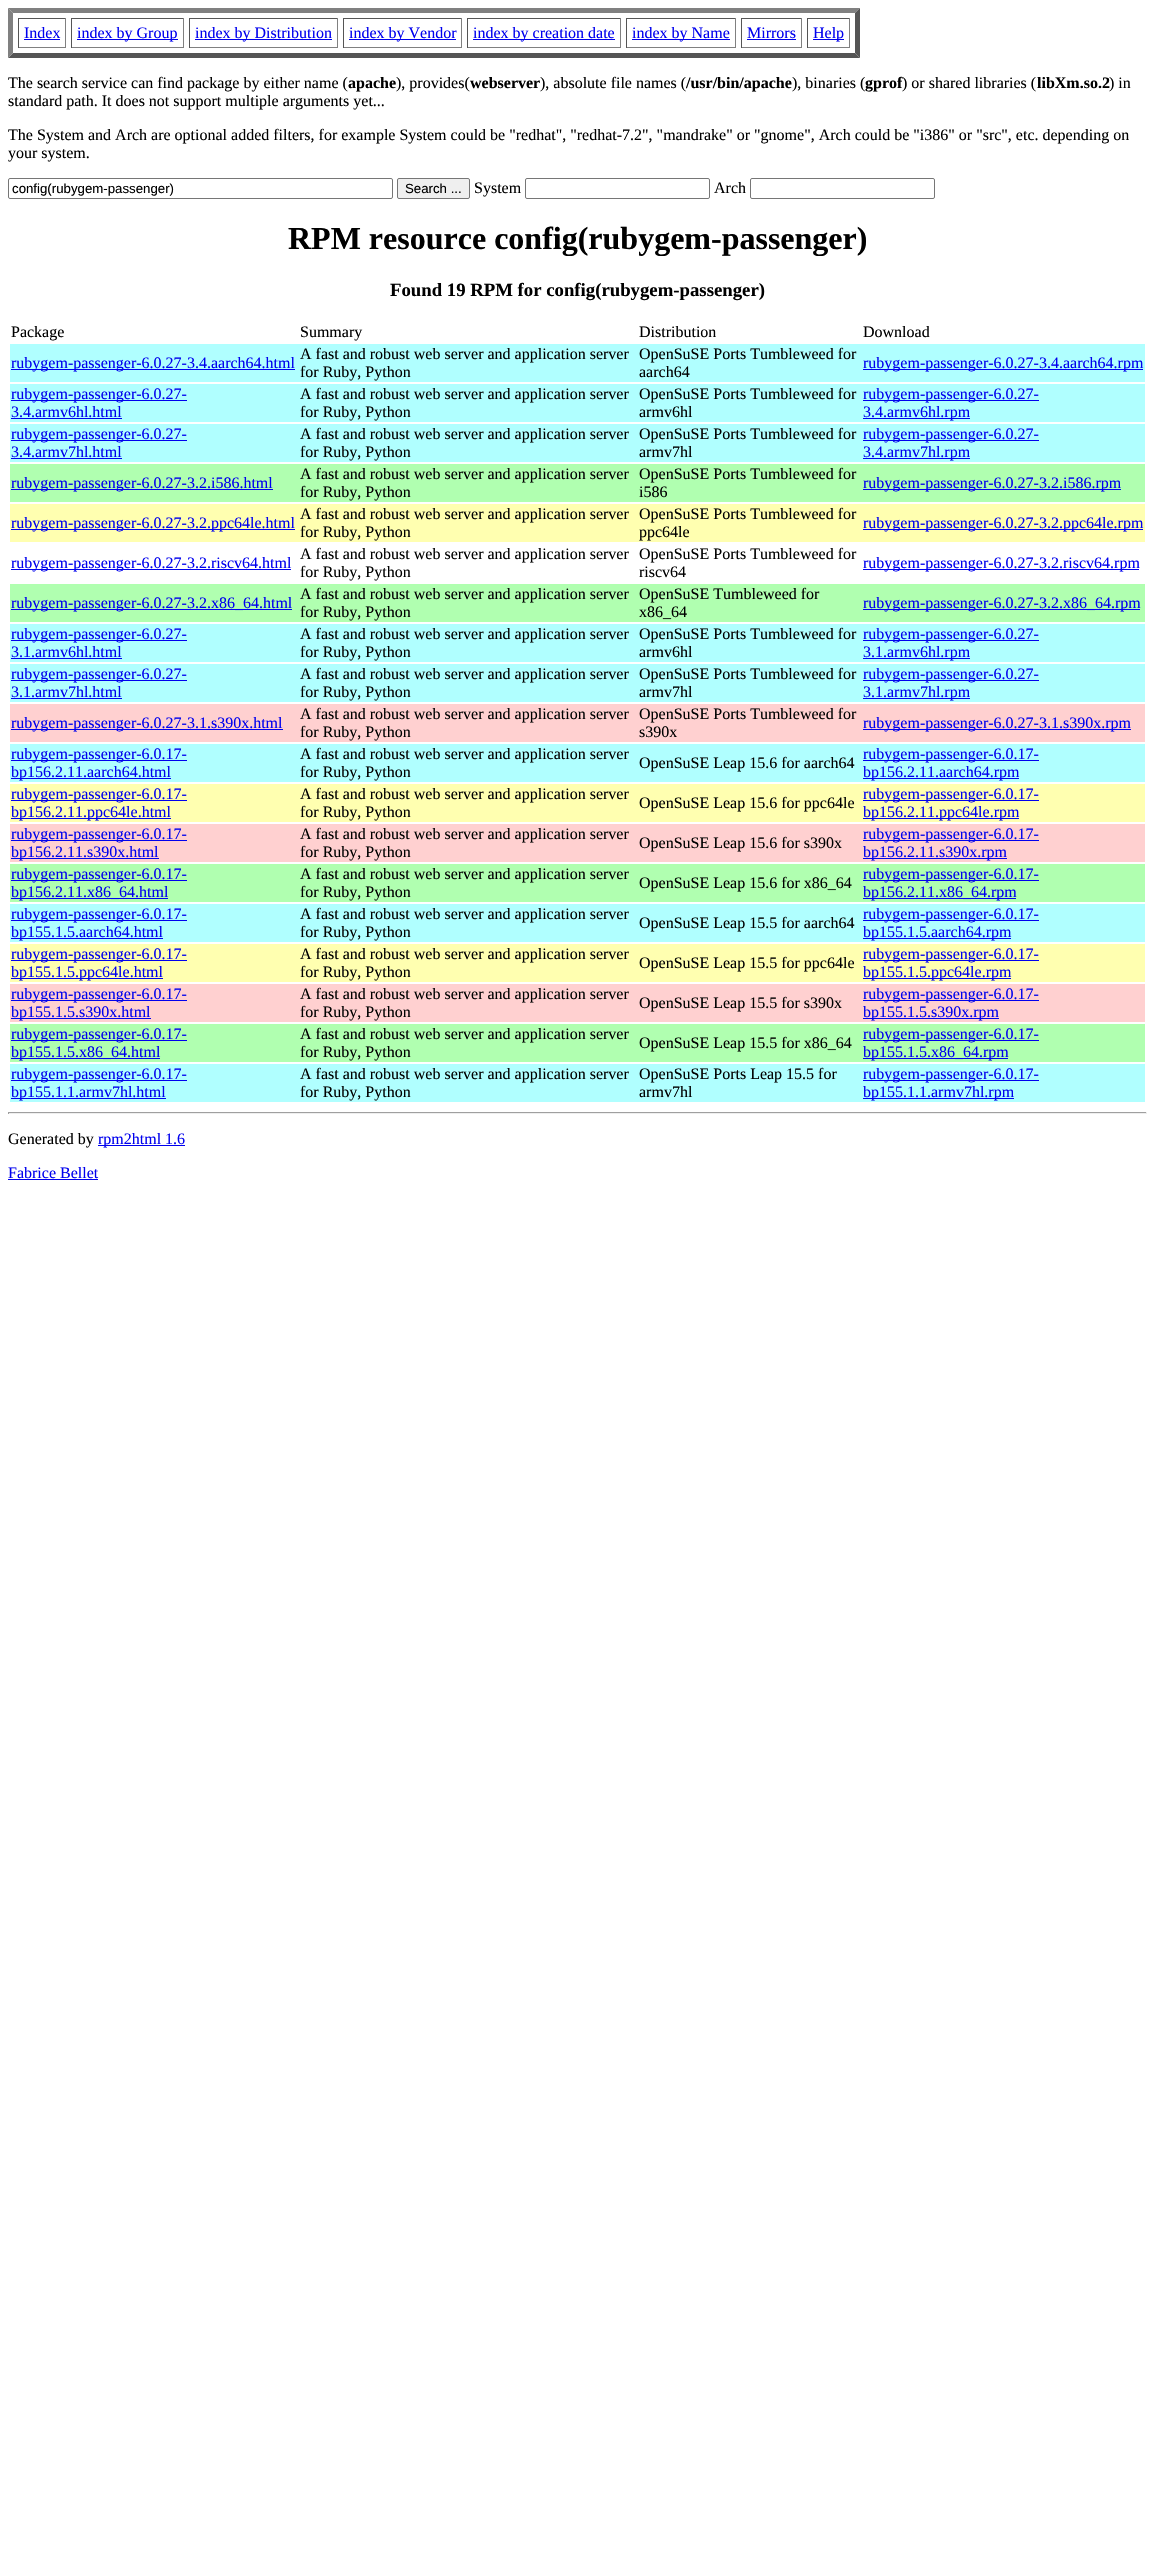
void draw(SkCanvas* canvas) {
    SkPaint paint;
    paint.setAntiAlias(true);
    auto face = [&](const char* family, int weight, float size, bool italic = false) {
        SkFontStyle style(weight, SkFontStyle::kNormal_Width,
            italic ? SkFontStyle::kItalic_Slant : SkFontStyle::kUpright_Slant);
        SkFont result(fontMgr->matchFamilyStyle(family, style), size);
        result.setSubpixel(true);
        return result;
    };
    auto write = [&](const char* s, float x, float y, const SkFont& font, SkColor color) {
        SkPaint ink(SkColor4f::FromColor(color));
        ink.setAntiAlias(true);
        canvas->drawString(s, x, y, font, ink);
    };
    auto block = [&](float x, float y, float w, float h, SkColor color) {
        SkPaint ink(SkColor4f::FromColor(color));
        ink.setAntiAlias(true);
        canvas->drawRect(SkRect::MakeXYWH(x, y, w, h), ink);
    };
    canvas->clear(SK_ColorWHITE);
    paint.setColor(SkColorSetRGB(128, 128, 128));
    canvas->drawPath(SkPathBuilder().moveTo(8, 8).lineTo(860, 8).lineTo(855, 13).lineTo(13, 13).close().detach(), paint);
    paint.setColor(SkColorSetRGB(85, 85, 85));
    canvas->drawPath(SkPathBuilder().moveTo(860, 8).lineTo(860, 58).lineTo(855, 53).lineTo(855, 13).close().detach(), paint);
    canvas->drawPath(SkPathBuilder().moveTo(860, 58).lineTo(8, 58).lineTo(13, 53).lineTo(855, 53).close().detach(), paint);
    paint.setColor(SkColorSetRGB(128, 128, 128));
    canvas->drawPath(SkPathBuilder().moveTo(8, 58).lineTo(8, 8).lineTo(13, 13).lineTo(13, 53).close().detach(), paint);
    block(18, 18, 48, 1, SkColorSetRGB(85, 85, 85));
    block(65, 18, 1, 30, SkColorSetRGB(128, 128, 128));
    block(18, 47, 48, 1, SkColorSetRGB(128, 128, 128));
    block(18, 18, 1, 30, SkColorSetRGB(85, 85, 85));
    auto kFont1 = face("Liberation Serif", 400, 16);
    write("Index", 24, 38, kFont1, SkColorSetRGB(0, 0, 238));
    block(24, 39, 36, 1, SkColorSetRGB(0, 0, 238));
    block(71, 18, 113, 1, SkColorSetRGB(85, 85, 85));
    block(183, 18, 1, 30, SkColorSetRGB(128, 128, 128));
    block(71, 47, 113, 1, SkColorSetRGB(128, 128, 128));
    block(71, 18, 1, 30, SkColorSetRGB(85, 85, 85));
    block(77, 39, 101, 1, SkColorSetRGB(0, 0, 238));
    write("index by Group", 77, 38, kFont1, SkColorSetRGB(0, 0, 238));
    block(189, 18, 149, 1, SkColorSetRGB(85, 85, 85));
    block(337, 18, 1, 30, SkColorSetRGB(128, 128, 128));
    block(189, 47, 149, 1, SkColorSetRGB(128, 128, 128));
    block(189, 18, 1, 30, SkColorSetRGB(85, 85, 85));
    block(195, 39, 137, 1, SkColorSetRGB(0, 0, 238));
    write("index by Distribution", 195, 38, kFont1, SkColorSetRGB(0, 0, 238));
    block(343, 18, 119, 1, SkColorSetRGB(85, 85, 85));
    block(461, 18, 1, 30, SkColorSetRGB(128, 128, 128));
    block(343, 47, 119, 1, SkColorSetRGB(128, 128, 128));
    block(343, 18, 1, 30, SkColorSetRGB(85, 85, 85));
    block(349, 39, 107, 1, SkColorSetRGB(0, 0, 238));
    write("index by Vendor", 349, 38, kFont1, SkColorSetRGB(0, 0, 238));
    block(467, 18, 154, 1, SkColorSetRGB(85, 85, 85));
    block(620, 18, 1, 30, SkColorSetRGB(128, 128, 128));
    block(467, 47, 154, 1, SkColorSetRGB(128, 128, 128));
    block(467, 18, 1, 30, SkColorSetRGB(85, 85, 85));
    block(473, 39, 142, 1, SkColorSetRGB(0, 0, 238));
    write("index by creation date", 473, 38, kFont1, SkColorSetRGB(0, 0, 238));
    block(626, 18, 110, 1, SkColorSetRGB(85, 85, 85));
    block(735, 18, 1, 30, SkColorSetRGB(128, 128, 128));
    block(626, 47, 110, 1, SkColorSetRGB(128, 128, 128));
    block(626, 18, 1, 30, SkColorSetRGB(85, 85, 85));
    block(632, 39, 98, 1, SkColorSetRGB(0, 0, 238));
    write("index by Name", 632, 38, kFont1, SkColorSetRGB(0, 0, 238));
    block(741, 18, 61, 1, SkColorSetRGB(85, 85, 85));
    block(801, 18, 1, 30, SkColorSetRGB(128, 128, 128));
    block(741, 47, 61, 1, SkColorSetRGB(128, 128, 128));
    block(741, 18, 1, 30, SkColorSetRGB(85, 85, 85));
    write("Mirrors", 747, 38, kFont1, SkColorSetRGB(0, 0, 238));
    block(747, 39, 49, 1, SkColorSetRGB(0, 0, 238));
    block(807, 18, 43, 1, SkColorSetRGB(85, 85, 85));
    block(849, 18, 1, 30, SkColorSetRGB(128, 128, 128));
    block(807, 47, 43, 1, SkColorSetRGB(128, 128, 128));
    block(807, 18, 1, 30, SkColorSetRGB(85, 85, 85));
    block(813, 39, 31, 1, SkColorSetRGB(0, 0, 238));
    write("Help", 813, 38, kFont1, SkColorSetRGB(0, 0, 238));
    write("The search service can find package by either name (", 8, 88, kFont1, SK_ColorBLACK);
    auto kFont2 = face("Liberation Serif", 700, 16);
    write("apache", 348, 88, kFont2, SK_ColorBLACK);
    write("), provides(", 396, 88, kFont1, SK_ColorBLACK);
    write("webserver", 470, 88, kFont2, SK_ColorBLACK);
    write("), absolute file names (", 540, 88, kFont1, SK_ColorBLACK);
    write("/usr/bin/apache", 686, 88, kFont2, SK_ColorBLACK);
    write("), binaries (", 792, 88, kFont1, SK_ColorBLACK);
    write("gprof", 865, 88, kFont2, SK_ColorBLACK);
    write(") or shared libraries (", 902, 88, kFont1, SK_ColorBLACK);
    write("libXm.so.2", 1037, 88, kFont2, SK_ColorBLACK);
    write(") in", 1109, 88, kFont1, SK_ColorBLACK);
    write("standard path. It does not support multiple arguments yet...", 8, 106, kFont1, SK_ColorBLACK);
    write("The System and Arch are optional added filters, for example System could be \"redhat\", \"redhat-7.2\", \"mandrake\" or \"gnome\", Arch could be \"i386\" or \"src\", etc. depending on", 8, 140, kFont1, SK_ColorBLACK);
    write("your system.", 8, 158, kFont1, SK_ColorBLACK);
    paint.setStyle(SkPaint::kStroke_Style);
    paint.setStrokeWidth(1);
    paint.setColor(SkColorSetRGB(118, 118, 118));
    canvas->drawRoundRect(SkRect::MakeXYWH(8.5f, 178.5f, 384, 20), 1.5f, 1.5f, paint);
    auto kFont3 = face("Liberation Sans", 400, 13.25f);
    write("config(rubygem-passenger)", 12, 193, kFont3, SK_ColorBLACK);
    paint.setStyle(SkPaint::kFill_Style);
    paint.setColor(SkColorSetRGB(239, 239, 239));
    canvas->drawRoundRect(SkRect::MakeXYWH(397.5f, 178.5f, 72, 20), 1.5f, 1.5f, paint);
    paint.setStyle(SkPaint::kStroke_Style);
    paint.setColor(SkColorSetRGB(118, 118, 118));
    canvas->drawRoundRect(SkRect::MakeXYWH(397.5f, 178.5f, 72, 20), 1.5f, 1.5f, paint);
    write("Search ...", 405, 193, kFont3, SK_ColorBLACK);
    write("System", 474, 193, kFont1, SK_ColorBLACK);
    canvas->drawRoundRect(SkRect::MakeXYWH(525.5f, 178.5f, 184, 20), 1.5f, 1.5f, paint);
    write("Arch", 714, 193, kFont1, SK_ColorBLACK);
    canvas->drawRoundRect(SkRect::MakeXYWH(750.5f, 178.5f, 184, 20), 1.5f, 1.5f, paint);
    auto kFont4 = face("Liberation Serif", 700, 32);
    write("RPM resource config(rubygem-passenger)", 288, 249, kFont4, SK_ColorBLACK);
    auto kFont5 = face("Liberation Serif", 700, 18.75f);
    write("Found 19 RPM for config(rubygem-passenger)", 390, 296, kFont5, SK_ColorBLACK);
    write("Package", 11, 337, kFont1, SK_ColorBLACK);
    write("Summary", 300, 337, kFont1, SK_ColorBLACK);
    write("Distribution", 639, 337, kFont1, SK_ColorBLACK);
    write("Download", 863, 337, kFont1, SK_ColorBLACK);
    block(10, 344, 1135, 38, SkColorSetRGB(176, 255, 255));
    block(11, 369, 284, 1, SkColorSetRGB(0, 0, 238));
    write("rubygem-passenger-6.0.27-3.4.aarch64.html", 11, 368, kFont1, SkColorSetRGB(0, 0, 238));
    write("A fast and robust web server and application server", 300, 359, kFont1, SK_ColorBLACK);
    write("for Ruby, Python", 300, 377, kFont1, SK_ColorBLACK);
    write("OpenSuSE Ports Tumbleweed for", 639, 359, kFont1, SK_ColorBLACK);
    write("aarch64", 639, 377, kFont1, SK_ColorBLACK);
    block(863, 369, 280, 1, SkColorSetRGB(0, 0, 238));
    write("rubygem-passenger-6.0.27-3.4.aarch64.rpm", 863, 368, kFont1, SkColorSetRGB(0, 0, 238));
    block(10, 384, 1135, 38, SkColorSetRGB(176, 255, 255));
    block(11, 400, 176, 1, SkColorSetRGB(0, 0, 238));
    write("rubygem-passenger-6.0.27-", 11, 399, kFont1, SkColorSetRGB(0, 0, 238));
    write("3.4.armv6hl.html", 11, 417, kFont1, SkColorSetRGB(0, 0, 238));
    block(11, 418, 111, 1, SkColorSetRGB(0, 0, 238));
    write("A fast and robust web server and application server", 300, 399, kFont1, SK_ColorBLACK);
    write("for Ruby, Python", 300, 417, kFont1, SK_ColorBLACK);
    write("OpenSuSE Ports Tumbleweed for", 639, 399, kFont1, SK_ColorBLACK);
    write("armv6hl", 639, 417, kFont1, SK_ColorBLACK);
    block(863, 400, 176, 1, SkColorSetRGB(0, 0, 238));
    write("rubygem-passenger-6.0.27-", 863, 399, kFont1, SkColorSetRGB(0, 0, 238));
    block(863, 418, 107, 1, SkColorSetRGB(0, 0, 238));
    write("3.4.armv6hl.rpm", 863, 417, kFont1, SkColorSetRGB(0, 0, 238));
    block(10, 424, 1135, 38, SkColorSetRGB(176, 255, 255));
    block(11, 440, 176, 1, SkColorSetRGB(0, 0, 238));
    write("rubygem-passenger-6.0.27-", 11, 439, kFont1, SkColorSetRGB(0, 0, 238));
    write("3.4.armv7hl.html", 11, 457, kFont1, SkColorSetRGB(0, 0, 238));
    block(11, 458, 111, 1, SkColorSetRGB(0, 0, 238));
    write("A fast and robust web server and application server", 300, 439, kFont1, SK_ColorBLACK);
    write("for Ruby, Python", 300, 457, kFont1, SK_ColorBLACK);
    write("OpenSuSE Ports Tumbleweed for", 639, 439, kFont1, SK_ColorBLACK);
    write("armv7hl", 639, 457, kFont1, SK_ColorBLACK);
    block(863, 440, 176, 1, SkColorSetRGB(0, 0, 238));
    write("rubygem-passenger-6.0.27-", 863, 439, kFont1, SkColorSetRGB(0, 0, 238));
    block(863, 458, 107, 1, SkColorSetRGB(0, 0, 238));
    write("3.4.armv7hl.rpm", 863, 457, kFont1, SkColorSetRGB(0, 0, 238));
    block(10, 464, 1135, 38, SkColorSetRGB(176, 255, 176));
    block(11, 489, 262, 1, SkColorSetRGB(0, 0, 238));
    write("rubygem-passenger-6.0.27-3.2.i586.html", 11, 488, kFont1, SkColorSetRGB(0, 0, 238));
    write("A fast and robust web server and application server", 300, 479, kFont1, SK_ColorBLACK);
    write("for Ruby, Python", 300, 497, kFont1, SK_ColorBLACK);
    write("OpenSuSE Ports Tumbleweed for", 639, 479, kFont1, SK_ColorBLACK);
    write("i586", 639, 497, kFont1, SK_ColorBLACK);
    block(863, 489, 258, 1, SkColorSetRGB(0, 0, 238));
    write("rubygem-passenger-6.0.27-3.2.i586.rpm", 863, 488, kFont1, SkColorSetRGB(0, 0, 238));
    block(10, 504, 1135, 38, SkColorSetRGB(255, 255, 176));
    block(11, 529, 284, 1, SkColorSetRGB(0, 0, 238));
    write("rubygem-passenger-6.0.27-3.2.ppc64le.html", 11, 528, kFont1, SkColorSetRGB(0, 0, 238));
    write("A fast and robust web server and application server", 300, 519, kFont1, SK_ColorBLACK);
    write("for Ruby, Python", 300, 537, kFont1, SK_ColorBLACK);
    write("OpenSuSE Ports Tumbleweed for", 639, 519, kFont1, SK_ColorBLACK);
    write("ppc64le", 639, 537, kFont1, SK_ColorBLACK);
    block(863, 529, 280, 1, SkColorSetRGB(0, 0, 238));
    write("rubygem-passenger-6.0.27-3.2.ppc64le.rpm", 863, 528, kFont1, SkColorSetRGB(0, 0, 238));
    block(11, 569, 280, 1, SkColorSetRGB(0, 0, 238));
    write("rubygem-passenger-6.0.27-3.2.riscv64.html", 11, 568, kFont1, SkColorSetRGB(0, 0, 238));
    write("A fast and robust web server and application server", 300, 559, kFont1, SK_ColorBLACK);
    write("for Ruby, Python", 300, 577, kFont1, SK_ColorBLACK);
    write("OpenSuSE Ports Tumbleweed for", 639, 559, kFont1, SK_ColorBLACK);
    write("riscv64", 639, 577, kFont1, SK_ColorBLACK);
    block(863, 569, 276, 1, SkColorSetRGB(0, 0, 238));
    write("rubygem-passenger-6.0.27-3.2.riscv64.rpm", 863, 568, kFont1, SkColorSetRGB(0, 0, 238));
    block(10, 584, 1135, 38, SkColorSetRGB(176, 255, 176));
    block(11, 609, 281, 1, SkColorSetRGB(0, 0, 238));
    write("rubygem-passenger-6.0.27-3.2.x86_64.html", 11, 608, kFont1, SkColorSetRGB(0, 0, 238));
    write("A fast and robust web server and application server", 300, 599, kFont1, SK_ColorBLACK);
    write("for Ruby, Python", 300, 617, kFont1, SK_ColorBLACK);
    write("OpenSuSE Tumbleweed for", 639, 599, kFont1, SK_ColorBLACK);
    write("x86_64", 639, 617, kFont1, SK_ColorBLACK);
    block(863, 609, 277, 1, SkColorSetRGB(0, 0, 238));
    write("rubygem-passenger-6.0.27-3.2.x86_64.rpm", 863, 608, kFont1, SkColorSetRGB(0, 0, 238));
    block(10, 624, 1135, 38, SkColorSetRGB(176, 255, 255));
    block(11, 640, 176, 1, SkColorSetRGB(0, 0, 238));
    write("rubygem-passenger-6.0.27-", 11, 639, kFont1, SkColorSetRGB(0, 0, 238));
    write("3.1.armv6hl.html", 11, 657, kFont1, SkColorSetRGB(0, 0, 238));
    block(11, 658, 111, 1, SkColorSetRGB(0, 0, 238));
    write("A fast and robust web server and application server", 300, 639, kFont1, SK_ColorBLACK);
    write("for Ruby, Python", 300, 657, kFont1, SK_ColorBLACK);
    write("OpenSuSE Ports Tumbleweed for", 639, 639, kFont1, SK_ColorBLACK);
    write("armv6hl", 639, 657, kFont1, SK_ColorBLACK);
    block(863, 640, 176, 1, SkColorSetRGB(0, 0, 238));
    write("rubygem-passenger-6.0.27-", 863, 639, kFont1, SkColorSetRGB(0, 0, 238));
    block(863, 658, 107, 1, SkColorSetRGB(0, 0, 238));
    write("3.1.armv6hl.rpm", 863, 657, kFont1, SkColorSetRGB(0, 0, 238));
    block(10, 664, 1135, 38, SkColorSetRGB(176, 255, 255));
    block(11, 680, 176, 1, SkColorSetRGB(0, 0, 238));
    write("rubygem-passenger-6.0.27-", 11, 679, kFont1, SkColorSetRGB(0, 0, 238));
    write("3.1.armv7hl.html", 11, 697, kFont1, SkColorSetRGB(0, 0, 238));
    block(11, 698, 111, 1, SkColorSetRGB(0, 0, 238));
    write("A fast and robust web server and application server", 300, 679, kFont1, SK_ColorBLACK);
    write("for Ruby, Python", 300, 697, kFont1, SK_ColorBLACK);
    write("OpenSuSE Ports Tumbleweed for", 639, 679, kFont1, SK_ColorBLACK);
    write("armv7hl", 639, 697, kFont1, SK_ColorBLACK);
    block(863, 680, 176, 1, SkColorSetRGB(0, 0, 238));
    write("rubygem-passenger-6.0.27-", 863, 679, kFont1, SkColorSetRGB(0, 0, 238));
    block(863, 698, 107, 1, SkColorSetRGB(0, 0, 238));
    write("3.1.armv7hl.rpm", 863, 697, kFont1, SkColorSetRGB(0, 0, 238));
    block(10, 704, 1135, 38, SkColorSetRGB(255, 208, 208));
    block(11, 729, 272, 1, SkColorSetRGB(0, 0, 238));
    write("rubygem-passenger-6.0.27-3.1.s390x.html", 11, 728, kFont1, SkColorSetRGB(0, 0, 238));
    write("A fast and robust web server and application server", 300, 719, kFont1, SK_ColorBLACK);
    write("for Ruby, Python", 300, 737, kFont1, SK_ColorBLACK);
    write("OpenSuSE Ports Tumbleweed for", 639, 719, kFont1, SK_ColorBLACK);
    write("s390x", 639, 737, kFont1, SK_ColorBLACK);
    block(863, 729, 268, 1, SkColorSetRGB(0, 0, 238));
    write("rubygem-passenger-6.0.27-3.1.s390x.rpm", 863, 728, kFont1, SkColorSetRGB(0, 0, 238));
    block(10, 744, 1135, 38, SkColorSetRGB(176, 255, 255));
    block(11, 760, 176, 1, SkColorSetRGB(0, 0, 238));
    write("rubygem-passenger-6.0.17-", 11, 759, kFont1, SkColorSetRGB(0, 0, 238));
    block(11, 778, 160, 1, SkColorSetRGB(0, 0, 238));
    write("bp156.2.11.aarch64.html", 11, 777, kFont1, SkColorSetRGB(0, 0, 238));
    write("A fast and robust web server and application server", 300, 759, kFont1, SK_ColorBLACK);
    write("for Ruby, Python", 300, 777, kFont1, SK_ColorBLACK);
    write("OpenSuSE Leap 15.6 for aarch64", 639, 768, kFont1, SK_ColorBLACK);
    block(863, 760, 176, 1, SkColorSetRGB(0, 0, 238));
    write("rubygem-passenger-6.0.17-", 863, 759, kFont1, SkColorSetRGB(0, 0, 238));
    block(863, 778, 156, 1, SkColorSetRGB(0, 0, 238));
    write("bp156.2.11.aarch64.rpm", 863, 777, kFont1, SkColorSetRGB(0, 0, 238));
    block(10, 784, 1135, 38, SkColorSetRGB(255, 255, 176));
    block(11, 800, 176, 1, SkColorSetRGB(0, 0, 238));
    write("rubygem-passenger-6.0.17-", 11, 799, kFont1, SkColorSetRGB(0, 0, 238));
    block(11, 818, 160, 1, SkColorSetRGB(0, 0, 238));
    write("bp156.2.11.ppc64le.html", 11, 817, kFont1, SkColorSetRGB(0, 0, 238));
    write("A fast and robust web server and application server", 300, 799, kFont1, SK_ColorBLACK);
    write("for Ruby, Python", 300, 817, kFont1, SK_ColorBLACK);
    write("OpenSuSE Leap 15.6 for ppc64le", 639, 808, kFont1, SK_ColorBLACK);
    block(863, 800, 176, 1, SkColorSetRGB(0, 0, 238));
    write("rubygem-passenger-6.0.17-", 863, 799, kFont1, SkColorSetRGB(0, 0, 238));
    block(863, 818, 156, 1, SkColorSetRGB(0, 0, 238));
    write("bp156.2.11.ppc64le.rpm", 863, 817, kFont1, SkColorSetRGB(0, 0, 238));
    block(10, 824, 1135, 38, SkColorSetRGB(255, 208, 208));
    block(11, 840, 176, 1, SkColorSetRGB(0, 0, 238));
    write("rubygem-passenger-6.0.17-", 11, 839, kFont1, SkColorSetRGB(0, 0, 238));
    block(11, 858, 148, 1, SkColorSetRGB(0, 0, 238));
    write("bp156.2.11.s390x.html", 11, 857, kFont1, SkColorSetRGB(0, 0, 238));
    write("A fast and robust web server and application server", 300, 839, kFont1, SK_ColorBLACK);
    write("for Ruby, Python", 300, 857, kFont1, SK_ColorBLACK);
    write("OpenSuSE Leap 15.6 for s390x", 639, 848, kFont1, SK_ColorBLACK);
    block(863, 840, 176, 1, SkColorSetRGB(0, 0, 238));
    write("rubygem-passenger-6.0.17-", 863, 839, kFont1, SkColorSetRGB(0, 0, 238));
    block(863, 858, 144, 1, SkColorSetRGB(0, 0, 238));
    write("bp156.2.11.s390x.rpm", 863, 857, kFont1, SkColorSetRGB(0, 0, 238));
    block(10, 864, 1135, 38, SkColorSetRGB(176, 255, 176));
    block(11, 880, 176, 1, SkColorSetRGB(0, 0, 238));
    write("rubygem-passenger-6.0.17-", 11, 879, kFont1, SkColorSetRGB(0, 0, 238));
    block(11, 898, 157, 1, SkColorSetRGB(0, 0, 238));
    write("bp156.2.11.x86_64.html", 11, 897, kFont1, SkColorSetRGB(0, 0, 238));
    write("A fast and robust web server and application server", 300, 879, kFont1, SK_ColorBLACK);
    write("for Ruby, Python", 300, 897, kFont1, SK_ColorBLACK);
    write("OpenSuSE Leap 15.6 for x86_64", 639, 888, kFont1, SK_ColorBLACK);
    block(863, 880, 176, 1, SkColorSetRGB(0, 0, 238));
    write("rubygem-passenger-6.0.17-", 863, 879, kFont1, SkColorSetRGB(0, 0, 238));
    block(863, 898, 153, 1, SkColorSetRGB(0, 0, 238));
    write("bp156.2.11.x86_64.rpm", 863, 897, kFont1, SkColorSetRGB(0, 0, 238));
    block(10, 904, 1135, 38, SkColorSetRGB(176, 255, 255));
    block(11, 920, 176, 1, SkColorSetRGB(0, 0, 238));
    write("rubygem-passenger-6.0.17-", 11, 919, kFont1, SkColorSetRGB(0, 0, 238));
    block(11, 938, 152, 1, SkColorSetRGB(0, 0, 238));
    write("bp155.1.5.aarch64.html", 11, 937, kFont1, SkColorSetRGB(0, 0, 238));
    write("A fast and robust web server and application server", 300, 919, kFont1, SK_ColorBLACK);
    write("for Ruby, Python", 300, 937, kFont1, SK_ColorBLACK);
    write("OpenSuSE Leap 15.5 for aarch64", 639, 928, kFont1, SK_ColorBLACK);
    block(863, 920, 176, 1, SkColorSetRGB(0, 0, 238));
    write("rubygem-passenger-6.0.17-", 863, 919, kFont1, SkColorSetRGB(0, 0, 238));
    block(863, 938, 148, 1, SkColorSetRGB(0, 0, 238));
    write("bp155.1.5.aarch64.rpm", 863, 937, kFont1, SkColorSetRGB(0, 0, 238));
    block(10, 944, 1135, 38, SkColorSetRGB(255, 255, 176));
    block(11, 960, 176, 1, SkColorSetRGB(0, 0, 238));
    write("rubygem-passenger-6.0.17-", 11, 959, kFont1, SkColorSetRGB(0, 0, 238));
    block(11, 978, 152, 1, SkColorSetRGB(0, 0, 238));
    write("bp155.1.5.ppc64le.html", 11, 977, kFont1, SkColorSetRGB(0, 0, 238));
    write("A fast and robust web server and application server", 300, 959, kFont1, SK_ColorBLACK);
    write("for Ruby, Python", 300, 977, kFont1, SK_ColorBLACK);
    write("OpenSuSE Leap 15.5 for ppc64le", 639, 968, kFont1, SK_ColorBLACK);
    block(863, 960, 176, 1, SkColorSetRGB(0, 0, 238));
    write("rubygem-passenger-6.0.17-", 863, 959, kFont1, SkColorSetRGB(0, 0, 238));
    block(863, 978, 148, 1, SkColorSetRGB(0, 0, 238));
    write("bp155.1.5.ppc64le.rpm", 863, 977, kFont1, SkColorSetRGB(0, 0, 238));
    block(10, 984, 1135, 38, SkColorSetRGB(255, 208, 208));
    block(11, 1000, 176, 1, SkColorSetRGB(0, 0, 238));
    write("rubygem-passenger-6.0.17-", 11, 999, kFont1, SkColorSetRGB(0, 0, 238));
    block(11, 1018, 140, 1, SkColorSetRGB(0, 0, 238));
    write("bp155.1.5.s390x.html", 11, 1017, kFont1, SkColorSetRGB(0, 0, 238));
    write("A fast and robust web server and application server", 300, 999, kFont1, SK_ColorBLACK);
    write("for Ruby, Python", 300, 1017, kFont1, SK_ColorBLACK);
    write("OpenSuSE Leap 15.5 for s390x", 639, 1008, kFont1, SK_ColorBLACK);
    block(863, 1000, 176, 1, SkColorSetRGB(0, 0, 238));
    write("rubygem-passenger-6.0.17-", 863, 999, kFont1, SkColorSetRGB(0, 0, 238));
    block(863, 1018, 136, 1, SkColorSetRGB(0, 0, 238));
    write("bp155.1.5.s390x.rpm", 863, 1017, kFont1, SkColorSetRGB(0, 0, 238));
    block(10, 1024, 1135, 38, SkColorSetRGB(176, 255, 176));
    block(11, 1040, 176, 1, SkColorSetRGB(0, 0, 238));
    write("rubygem-passenger-6.0.17-", 11, 1039, kFont1, SkColorSetRGB(0, 0, 238));
    block(11, 1058, 149, 1, SkColorSetRGB(0, 0, 238));
    write("bp155.1.5.x86_64.html", 11, 1057, kFont1, SkColorSetRGB(0, 0, 238));
    write("A fast and robust web server and application server", 300, 1039, kFont1, SK_ColorBLACK);
    write("for Ruby, Python", 300, 1057, kFont1, SK_ColorBLACK);
    write("OpenSuSE Leap 15.5 for x86_64", 639, 1048, kFont1, SK_ColorBLACK);
    block(863, 1040, 176, 1, SkColorSetRGB(0, 0, 238));
    write("rubygem-passenger-6.0.17-", 863, 1039, kFont1, SkColorSetRGB(0, 0, 238));
    block(863, 1058, 145, 1, SkColorSetRGB(0, 0, 238));
    write("bp155.1.5.x86_64.rpm", 863, 1057, kFont1, SkColorSetRGB(0, 0, 238));
    block(10, 1064, 1135, 38, SkColorSetRGB(176, 255, 255));
    block(11, 1080, 176, 1, SkColorSetRGB(0, 0, 238));
    write("rubygem-passenger-6.0.17-", 11, 1079, kFont1, SkColorSetRGB(0, 0, 238));
    block(11, 1098, 155, 1, SkColorSetRGB(0, 0, 238));
    write("bp155.1.1.armv7hl.html", 11, 1097, kFont1, SkColorSetRGB(0, 0, 238));
    write("A fast and robust web server and application server", 300, 1079, kFont1, SK_ColorBLACK);
    write("for Ruby, Python", 300, 1097, kFont1, SK_ColorBLACK);
    write("OpenSuSE Ports Leap 15.5 for", 639, 1079, kFont1, SK_ColorBLACK);
    write("armv7hl", 639, 1097, kFont1, SK_ColorBLACK);
    block(863, 1080, 176, 1, SkColorSetRGB(0, 0, 238));
    write("rubygem-passenger-6.0.17-", 863, 1079, kFont1, SkColorSetRGB(0, 0, 238));
    block(863, 1098, 151, 1, SkColorSetRGB(0, 0, 238));
    write("bp155.1.1.armv7hl.rpm", 863, 1097, kFont1, SkColorSetRGB(0, 0, 238));
    block(8, 1112, 1139, 1, SkColorSetRGB(159, 159, 159));
    block(1146, 1112, 1, 2, SkColorSetRGB(238, 238, 238));
    block(8, 1113, 1139, 1, SkColorSetRGB(238, 238, 238));
    block(8, 1112, 1, 2, SkColorSetRGB(159, 159, 159));
    write("Generated by", 8, 1144, kFont1, SK_ColorBLACK);
    block(98, 1145, 87, 1, SkColorSetRGB(0, 0, 238));
    write("rpm2html 1.6", 98, 1144, kFont1, SkColorSetRGB(0, 0, 238));
    write("Fabrice Bellet", 8, 1178, kFont1, SkColorSetRGB(0, 0, 238));
    block(8, 1179, 90, 1, SkColorSetRGB(0, 0, 238));
}
